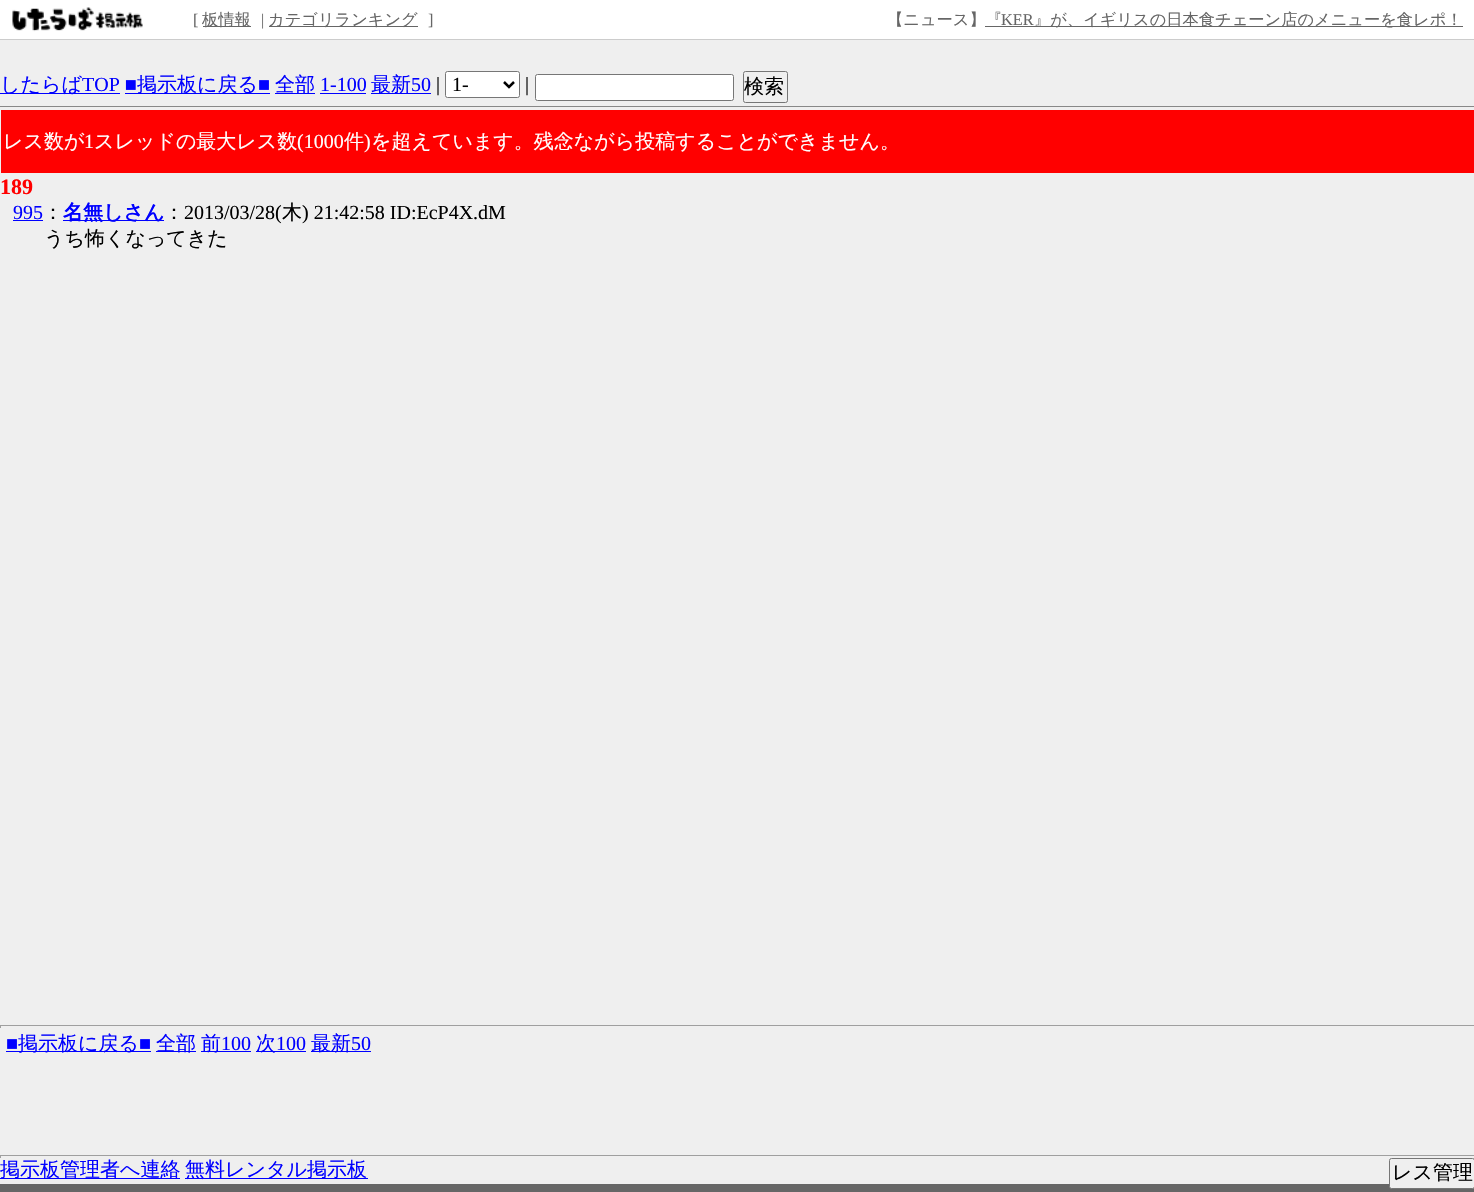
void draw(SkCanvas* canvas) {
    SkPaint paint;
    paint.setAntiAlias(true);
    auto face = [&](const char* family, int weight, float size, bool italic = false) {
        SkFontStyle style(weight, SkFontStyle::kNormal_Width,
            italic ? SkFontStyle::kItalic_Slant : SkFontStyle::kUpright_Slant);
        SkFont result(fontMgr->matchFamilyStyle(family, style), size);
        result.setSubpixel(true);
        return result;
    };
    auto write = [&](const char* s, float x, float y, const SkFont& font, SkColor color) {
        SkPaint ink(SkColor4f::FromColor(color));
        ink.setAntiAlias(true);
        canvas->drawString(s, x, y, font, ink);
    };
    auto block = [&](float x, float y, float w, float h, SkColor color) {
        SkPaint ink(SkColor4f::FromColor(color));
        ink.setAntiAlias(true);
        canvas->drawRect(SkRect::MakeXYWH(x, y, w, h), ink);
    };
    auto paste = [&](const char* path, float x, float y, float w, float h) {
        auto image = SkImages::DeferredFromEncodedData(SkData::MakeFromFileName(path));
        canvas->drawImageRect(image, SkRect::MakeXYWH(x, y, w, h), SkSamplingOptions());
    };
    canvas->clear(SkColorSetRGB(102, 102, 102));
    block(0, 40, 1474, 1144, SkColorSetRGB(239, 239, 239));
    block(0, 0, 1474, 39, SK_ColorWHITE);
    block(0, 39, 1474, 1, SkColorSetRGB(204, 204, 204));
    paste("pic1.png", 12, 7, 131, 25);
    auto kFont1 = face("Liberation Serif", 400, 16.25f);
    write("[", 193, 25, kFont1, SkColorSetRGB(102, 102, 102));
    block(203, 26, 48, 1, SkColorSetRGB(102, 102, 102));
    auto kFont2 = face("WenQuanYi Zen Hei", 500, 16.25f);
    write("板情報", 202, 25, kFont2, SkColorSetRGB(102, 102, 102));
    write("|", 261, 25, kFont1, SkColorSetRGB(102, 102, 102));
    block(269, 26, 149, 1, SkColorSetRGB(102, 102, 102));
    write("カテゴリランキング", 268, 25, kFont2, SkColorSetRGB(102, 102, 102));
    write("]", 428, 25, kFont1, SkColorSetRGB(102, 102, 102));
    write("【ニュース】『", 887, 25, kFont2, SkColorSetRGB(102, 102, 102));
    write("KER", 1001, 25, kFont1, SkColorSetRGB(102, 102, 102));
    block(985, 26, 478, 1, SkColorSetRGB(102, 102, 102));
    write("』が、イギリスの日本食チェーン店のメニューを食レポ！", 1034, 25, kFont2, SkColorSetRGB(102, 102, 102));
    block(0, 106, 1474, 1, SkColorSetRGB(136, 136, 136));
    block(0, 93, 120, 1, SkColorSetRGB(0, 0, 255));
    auto kFont3 = face("WenQuanYi Zen Hei", 500, 20);
    write("したらば", 0, 91, kFont3, SkColorSetRGB(0, 0, 255));
    auto kFont4 = face("Liberation Serif", 400, 20);
    write("TOP ■", 82, 91, kFont4, SkColorSetRGB(0, 0, 255));
    block(125, 93, 145, 1, SkColorSetRGB(0, 0, 255));
    write("掲示板に戻る", 137, 91, kFont3, SkColorSetRGB(0, 0, 255));
    write("■", 258, 91, kFont4, SkColorSetRGB(0, 0, 255));
    block(275, 93, 40, 1, SkColorSetRGB(0, 0, 255));
    write("全部", 275, 91, kFont3, SkColorSetRGB(0, 0, 255));
    write("1-100", 320, 91, kFont4, SkColorSetRGB(0, 0, 255));
    block(320, 93, 46, 1, SkColorSetRGB(0, 0, 255));
    block(371, 93, 60, 1, SkColorSetRGB(0, 0, 255));
    write("最新", 371, 91, kFont3, SkColorSetRGB(0, 0, 255));
    write("50", 411, 91, kFont4, SkColorSetRGB(0, 0, 255));
    write("|", 436, 91, kFont4, SK_ColorBLACK);
    paint.setColor(SK_ColorWHITE);
    canvas->drawRoundRect(SkRect::MakeXYWH(445.5f, 71.5f, 74, 26), 2, 2, paint);
    paint.setStyle(SkPaint::kStroke_Style);
    paint.setStrokeWidth(1);
    paint.setColor(SkColorSetRGB(118, 118, 118));
    canvas->drawRoundRect(SkRect::MakeXYWH(445.5f, 71.5f, 74, 26), 2, 2, paint);
    paint.setStrokeWidth(2.5f);
    paint.setColor(SK_ColorBLACK);
    canvas->drawPath(SkPathBuilder().moveTo(504, 82).lineTo(509, 87).lineTo(514, 82).detach(), paint);
    write("1-", 452, 91, kFont4, SK_ColorBLACK);
    write("|", 525, 91, kFont4, SK_ColorBLACK);
    paint.setStyle(SkPaint::kFill_Style);
    paint.setColor(SK_ColorWHITE);
    canvas->drawRoundRect(SkRect::MakeXYWH(535.5f, 74.5f, 198, 26), 2, 2, paint);
    paint.setStyle(SkPaint::kStroke_Style);
    paint.setStrokeWidth(1);
    paint.setColor(SkColorSetRGB(118, 118, 118));
    canvas->drawRoundRect(SkRect::MakeXYWH(535.5f, 74.5f, 198, 26), 2, 2, paint);
    canvas->drawRoundRect(SkRect::MakeXYWH(743.5f, 71.5f, 44, 31), 2, 2, paint);
    write("検索", 744, 93, kFont3, SK_ColorBLACK);
    block(1, 110, 1473, 63, SkColorSetRGB(255, 0, 0));
    write("レス数が", 3, 148, kFont3, SK_ColorWHITE);
    write("1", 84, 148, kFont4, SK_ColorWHITE);
    write("スレッドの最大レス数", 94, 148, kFont3, SK_ColorWHITE);
    write("(1000", 297, 148, kFont4, SK_ColorWHITE);
    write("件", 344, 148, kFont3, SK_ColorWHITE);
    write(")", 364, 148, kFont4, SK_ColorWHITE);
    write("を超えています。残念ながら投稿することができません。", 371, 148, kFont3, SK_ColorWHITE);
    auto kFont5 = face("Liberation Serif", 700, 22);
    write("189", 0, 194, kFont5, SkColorSetRGB(255, 0, 0));
    write("995", 13, 219, kFont4, SkColorSetRGB(0, 0, 255));
    block(13, 220, 30, 1, SkColorSetRGB(0, 0, 255));
    write("：", 43, 219, kFont3, SK_ColorBLACK);
    block(63, 220, 101, 1, SkColorSetRGB(0, 0, 255));
    auto kFont6 = face("WenQuanYi Zen Hei", 700, 20);
    write("名無しさん", 63, 219, kFont6, SkColorSetRGB(0, 0, 255));
    write("：", 164, 219, kFont3, SK_ColorBLACK);
    write("2013/03/28(", 184, 219, kFont4, SK_ColorBLACK);
    write("木", 282, 219, kFont3, SK_ColorBLACK);
    write(") 21:42:58 ID:EcP4X.dM", 302, 219, kFont4, SK_ColorBLACK);
    write("うち怖くなってきた", 44, 245, kFont3, SK_ColorBLACK);
    block(0, 1025, 1474, 1, SkColorSetRGB(159, 159, 159));
    block(0, 1025, 1, 3, SkColorSetRGB(159, 159, 159));
    write("■", 6, 1050, kFont4, SkColorSetRGB(0, 0, 255));
    block(6, 1051, 145, 1, SkColorSetRGB(0, 0, 255));
    write("掲示板に戻る", 18, 1050, kFont3, SkColorSetRGB(0, 0, 255));
    write("■", 139, 1050, kFont4, SkColorSetRGB(0, 0, 255));
    block(156, 1051, 40, 1, SkColorSetRGB(0, 0, 255));
    write("全部", 156, 1050, kFont3, SkColorSetRGB(0, 0, 255));
    block(201, 1051, 50, 1, SkColorSetRGB(0, 0, 255));
    write("前", 201, 1050, kFont3, SkColorSetRGB(0, 0, 255));
    write("100", 221, 1050, kFont4, SkColorSetRGB(0, 0, 255));
    block(256, 1051, 50, 1, SkColorSetRGB(0, 0, 255));
    write("次", 256, 1050, kFont3, SkColorSetRGB(0, 0, 255));
    write("100", 276, 1050, kFont4, SkColorSetRGB(0, 0, 255));
    block(311, 1051, 60, 1, SkColorSetRGB(0, 0, 255));
    write("最新", 311, 1050, kFont3, SkColorSetRGB(0, 0, 255));
    write("50", 351, 1050, kFont4, SkColorSetRGB(0, 0, 255));
    block(0, 1155, 1474, 1, SkColorSetRGB(159, 159, 159));
    block(0, 1155, 1, 3, SkColorSetRGB(159, 159, 159));
    block(0, 1178, 180, 1, SkColorSetRGB(0, 0, 255));
    write("掲示板管理者へ連絡", 0, 1176, kFont3, SkColorSetRGB(0, 0, 255));
    block(185, 1178, 183, 1, SkColorSetRGB(0, 0, 255));
    write("無料レンタル掲示板", 185, 1176, kFont3, SkColorSetRGB(0, 0, 255));
    paint.setStyle(SkPaint::kFill_Style);
    paint.setColor(SkColorSetRGB(239, 239, 239));
    canvas->drawRoundRect(SkRect::MakeXYWH(1389.5f, 1158.5f, 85, 30), 2, 2, paint);
    paint.setStyle(SkPaint::kStroke_Style);
    paint.setColor(SkColorSetRGB(118, 118, 118));
    canvas->drawRoundRect(SkRect::MakeXYWH(1389.5f, 1158.5f, 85, 30), 2, 2, paint);
    write("レス管理", 1392, 1179, kFont3, SK_ColorBLACK);
}
